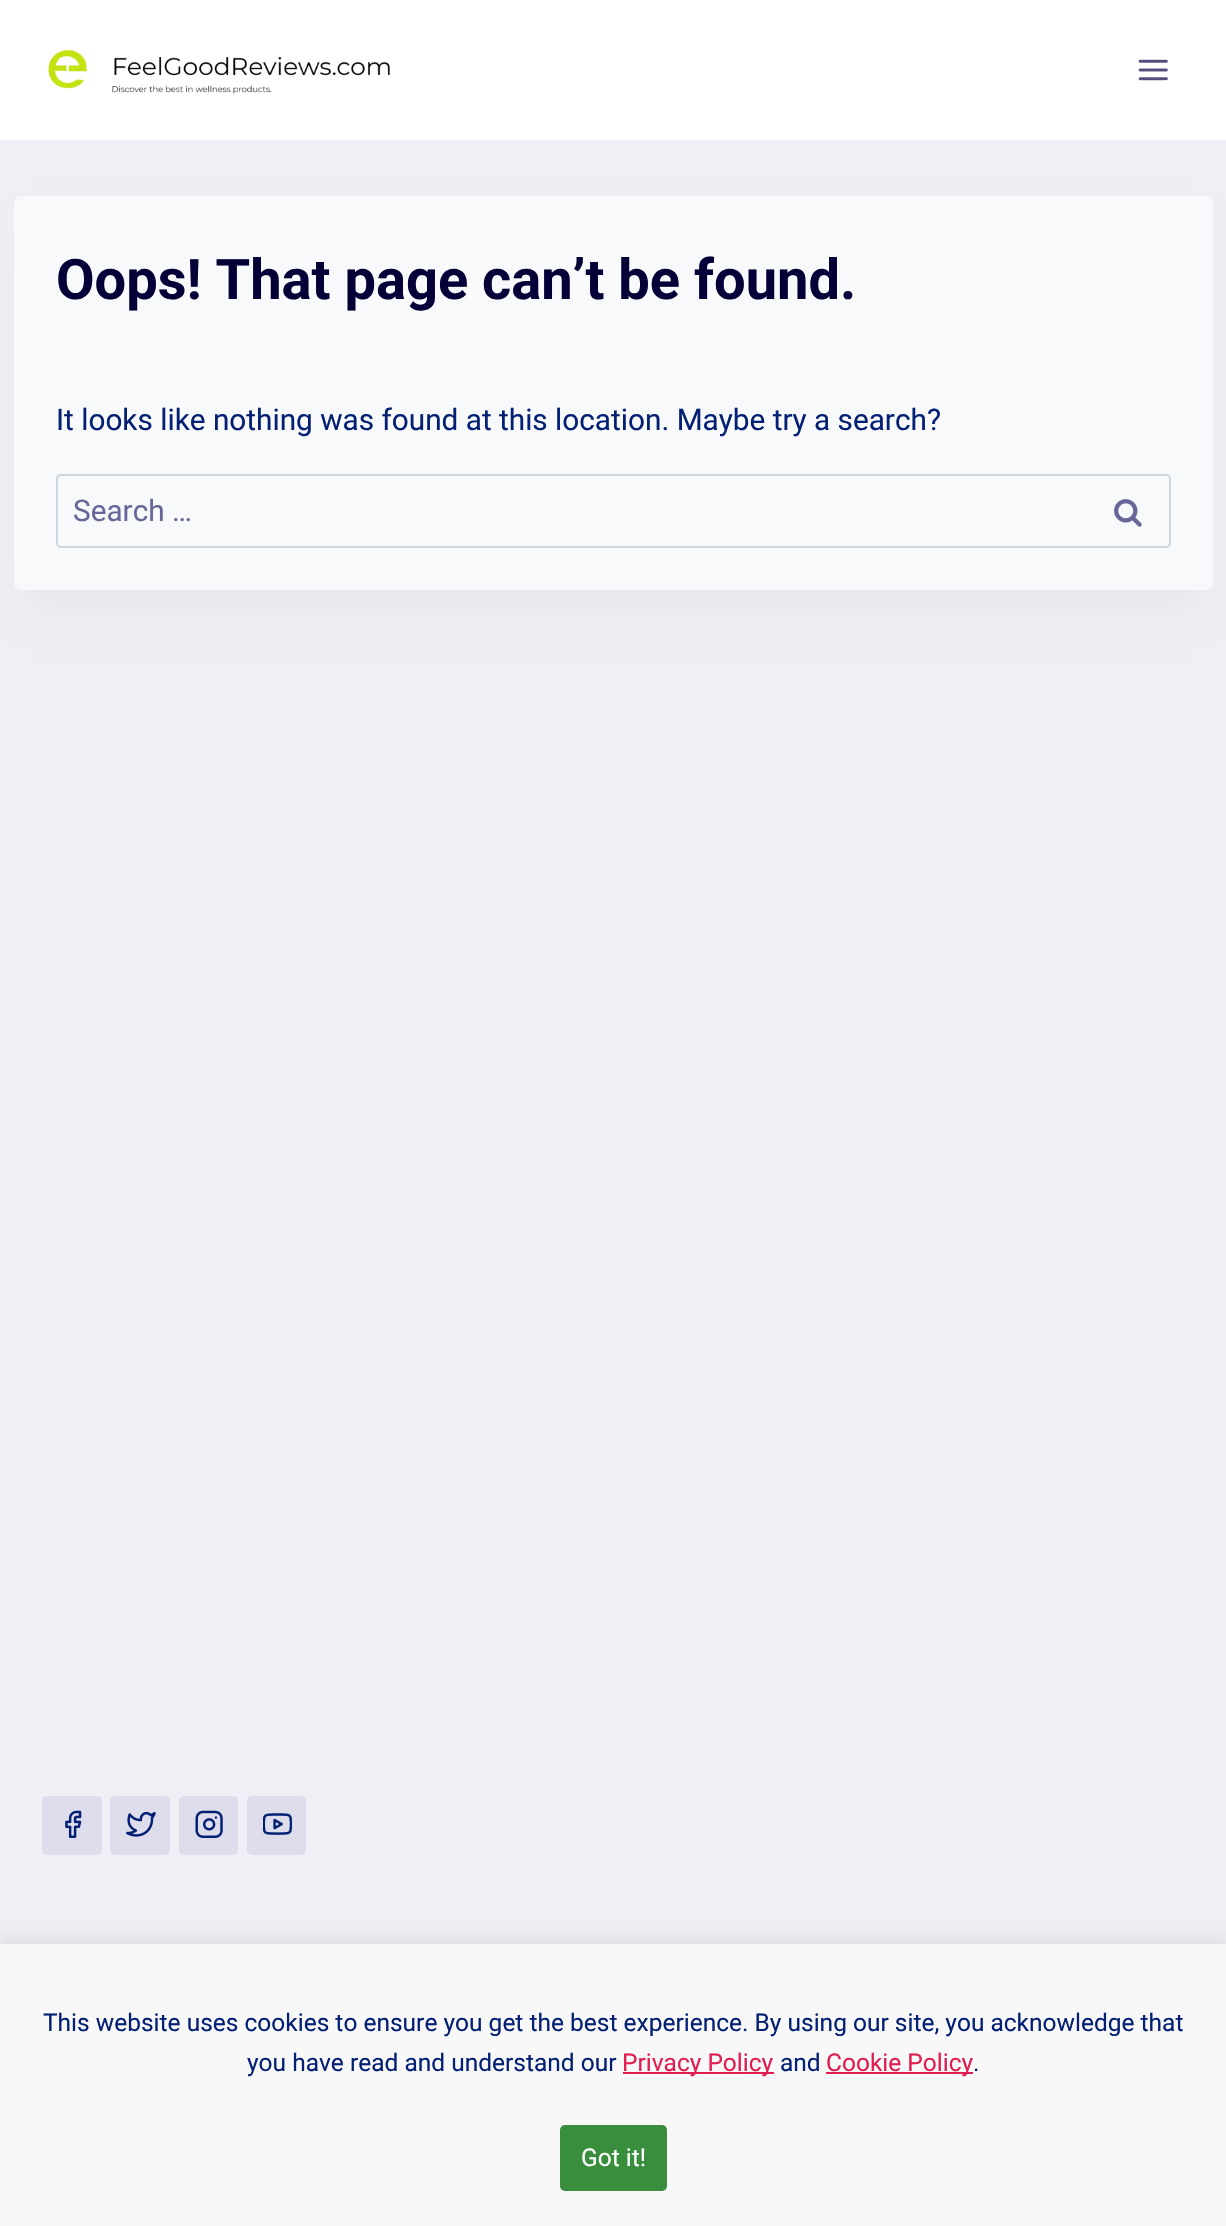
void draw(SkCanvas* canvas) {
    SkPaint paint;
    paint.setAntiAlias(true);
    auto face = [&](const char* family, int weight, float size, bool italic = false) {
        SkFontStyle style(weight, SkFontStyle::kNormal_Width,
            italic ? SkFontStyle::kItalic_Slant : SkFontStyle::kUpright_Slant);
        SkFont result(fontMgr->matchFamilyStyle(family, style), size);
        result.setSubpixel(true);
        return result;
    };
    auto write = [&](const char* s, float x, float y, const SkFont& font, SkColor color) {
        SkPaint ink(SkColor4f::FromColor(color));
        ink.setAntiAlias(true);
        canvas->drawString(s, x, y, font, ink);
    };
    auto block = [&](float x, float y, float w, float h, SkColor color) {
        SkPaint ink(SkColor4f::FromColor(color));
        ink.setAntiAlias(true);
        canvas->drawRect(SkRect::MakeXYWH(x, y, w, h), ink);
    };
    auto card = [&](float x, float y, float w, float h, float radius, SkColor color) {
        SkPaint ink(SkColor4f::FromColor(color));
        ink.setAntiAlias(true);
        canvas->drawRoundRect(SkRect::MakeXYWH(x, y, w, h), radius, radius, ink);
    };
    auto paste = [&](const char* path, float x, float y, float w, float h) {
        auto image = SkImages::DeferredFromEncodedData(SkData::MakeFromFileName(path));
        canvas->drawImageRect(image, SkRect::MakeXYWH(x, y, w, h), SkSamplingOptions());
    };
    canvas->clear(SkColorSetRGB(239, 239, 245));
    block(0, 0, 1226, 140, SK_ColorWHITE);
    paste("pic1.png", 48, 49, 342, 45);
    paste("pic2.png", 1138, 59, 30, 22);
    paint.setColor(SkColorSetARGB(13, 0, 0, 0));
    paint.setMaskFilter(SkMaskFilter::MakeBlur(kNormal_SkBlurStyle, 22));
    canvas->drawRect(SkRect::MakeXYWH(32, 240, 1163, 359), paint);
    paint.setMaskFilter(nullptr);
    card(14, 196, 1199, 394, 7, SkColorSetRGB(248, 249, 250));
    auto kFont1 = face("Roboto", 700, 56);
    write("Oops! That page can’t be found.", 56, 299, kFont1, SkColorSetRGB(4, 0, 55));
    auto kFont2 = face("Roboto", 400, 29.75f);
    write("It looks like nothing was found at this location. Maybe try a search?", 56, 430, kFont2, SkColorSetRGB(3, 32, 117));
    paint.setStyle(SkPaint::kStroke_Style);
    paint.setStrokeWidth(2);
    paint.setColor(SkColorSetRGB(203, 213, 224));
    canvas->drawRoundRect(SkRect::MakeXYWH(57, 475, 1113, 72), 4, 4, paint);
    write("Search …", 73, 521, kFont2, SkColorSetRGB(102, 102, 153));
    paste("pic3.png", 1114, 499, 28, 28);
    card(42, 1796, 60, 59, 5, SkColorSetRGB(222, 221, 235));
    paste("pic4.png", 65, 1810, 17, 28);
    card(110, 1796, 60, 59, 5, SkColorSetRGB(222, 221, 235));
    paste("pic5.png", 126, 1812, 30, 25);
    card(179, 1796, 59, 59, 5, SkColorSetRGB(222, 221, 235));
    paste("pic6.png", 195, 1810, 28, 28);
    card(247, 1796, 59, 59, 5, SkColorSetRGB(222, 221, 235));
    paste("pic7.png", 263, 1813, 29, 22);
    paint.setStyle(SkPaint::kFill_Style);
    paint.setColor(SkColorSetARGB(26, 0, 0, 0));
    paint.setMaskFilter(SkMaskFilter::MakeBlur(kNormal_SkBlurStyle, 9));
    canvas->drawRect(SkRect::MakeXYWH(0, 1941, 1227, 282), paint);
    paint.setMaskFilter(nullptr);
    block(0, 1944, 1226, 282, SkColorSetRGB(248, 248, 248));
    auto kFont3 = face("Roboto", 400, 24.5f);
    write("This website uses cookies to ensure you get the best experience. By using our site, you acknowledge that", 43, 2031, kFont3, SkColorSetRGB(3, 32, 117));
    write("you have read and understand our", 247, 2071, kFont3, SkColorSetRGB(3, 32, 117));
    block(623, 2072, 151, 2, SkColorSetRGB(226, 30, 81));
    write("Privacy Policy", 622, 2071, kFont3, SkColorSetRGB(226, 30, 81));
    write("and", 780, 2071, kFont3, SkColorSetRGB(3, 32, 117));
    block(826, 2072, 147, 2, SkColorSetRGB(226, 30, 81));
    write("Cookie Policy", 826, 2071, kFont3, SkColorSetRGB(226, 30, 81));
    write(".", 973, 2071, kFont3, SkColorSetRGB(3, 32, 117));
    card(560, 2125, 107, 66, 5, SkColorSetRGB(56, 142, 60));
    write("Got it!", 581, 2166, kFont3, SK_ColorWHITE);
}
